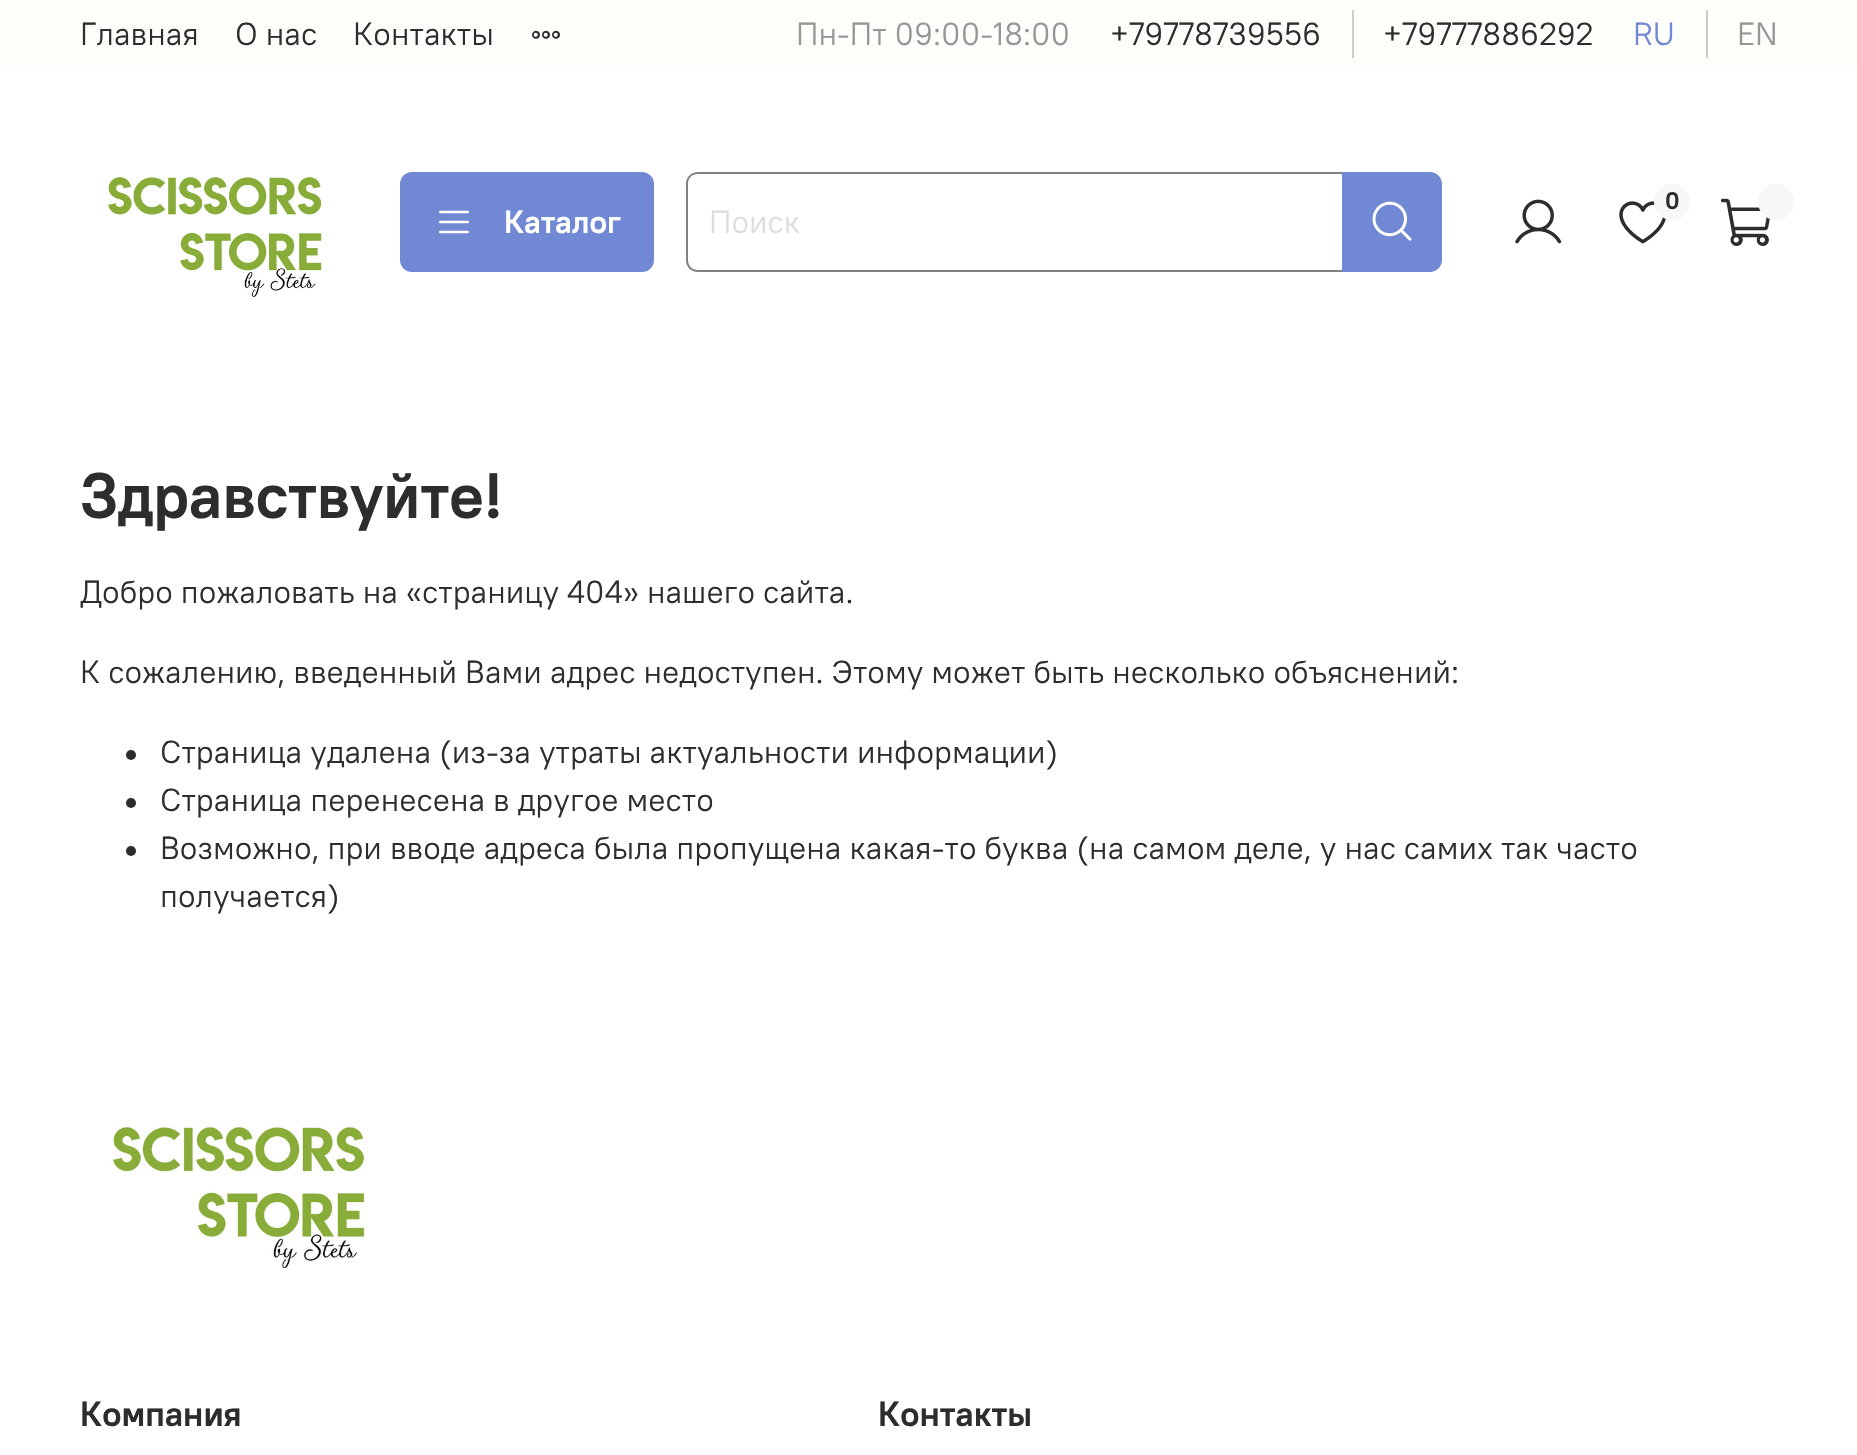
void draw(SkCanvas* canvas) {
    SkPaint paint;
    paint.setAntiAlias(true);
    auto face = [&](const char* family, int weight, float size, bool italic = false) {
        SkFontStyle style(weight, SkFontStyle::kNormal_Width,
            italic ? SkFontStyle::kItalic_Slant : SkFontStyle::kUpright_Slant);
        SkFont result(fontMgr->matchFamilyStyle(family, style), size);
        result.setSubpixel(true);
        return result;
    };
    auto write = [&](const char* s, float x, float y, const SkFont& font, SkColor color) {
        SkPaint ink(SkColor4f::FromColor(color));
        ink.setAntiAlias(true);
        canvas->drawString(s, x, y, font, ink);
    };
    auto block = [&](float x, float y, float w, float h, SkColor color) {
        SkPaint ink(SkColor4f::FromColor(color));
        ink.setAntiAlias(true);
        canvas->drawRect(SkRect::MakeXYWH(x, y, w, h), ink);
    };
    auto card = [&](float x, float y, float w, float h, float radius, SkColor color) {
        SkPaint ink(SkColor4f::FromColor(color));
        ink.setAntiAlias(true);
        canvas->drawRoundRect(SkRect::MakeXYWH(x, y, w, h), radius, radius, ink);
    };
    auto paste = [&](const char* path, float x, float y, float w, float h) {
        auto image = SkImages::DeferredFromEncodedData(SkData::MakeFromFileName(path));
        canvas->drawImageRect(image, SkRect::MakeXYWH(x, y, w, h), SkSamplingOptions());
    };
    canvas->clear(SK_ColorWHITE);
    block(0, 0, 1857, 66, SkColorSetRGB(253, 255, 251));
    auto kFont1 = face("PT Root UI", 400, 32);
    write("Главная", 80, 45, kFont1, SkColorSetRGB(45, 45, 45));
    write("О нас", 235, 45, kFont1, SkColorSetRGB(45, 45, 45));
    write("Контакты", 353, 45, kFont1, SkColorSetRGB(45, 45, 45));
    paste("pic1.png", 532, 30, 28, 9);
    write("Пн-Пт 09:00-18:00", 796, 45, kFont1, SkColorSetRGB(150, 150, 150));
    block(1352, 10, 2, 48, SkColorSetRGB(204, 204, 204));
    write("+79778739556", 1110, 45, kFont1, SkColorSetRGB(45, 45, 45));
    write("+79777886292", 1383, 45, kFont1, SkColorSetRGB(45, 45, 45));
    block(1706, 10, 2, 48, SkColorSetRGB(204, 204, 204));
    write("RU", 1633, 45, kFont1, SkColorSetRGB(113, 136, 212));
    write("EN", 1737, 45, kFont1, SkColorSetRGB(150, 150, 150));
    paste("pic2.png", 106, 177, 217, 120);
    paste("pic3.png", 1515, 199, 47, 45);
    paste("pic4.png", 1619, 201, 47, 43);
    paint.setColor(SkColorSetRGB(247, 247, 247));
    canvas->drawCircle(1672, 202, 18, paint);
    auto kFont2 = face("PT Root UI", 700, 24);
    write("0", 1665, 209, kFont2, SkColorSetRGB(45, 45, 45));
    paste("pic5.png", 1720, 198, 50, 48);
    canvas->drawCircle(1776, 202, 18, paint);
    card(400, 172, 254, 100, 12, SkColorSetRGB(113, 136, 212));
    paste("pic6.png", 439, 210, 30, 24);
    auto kFont3 = face("PT Root UI", 700, 32);
    write("Каталог", 504, 233, kFont3, SK_ColorWHITE);
    paint.setColor(SkColorSetRGB(128, 128, 128));
    canvas->drawPath(SkPathBuilder(SkPathFillType::kEvenOdd).moveTo(698, 172).lineTo(1342, 172).lineTo(1342, 272).lineTo(698, 272).cubicTo(691, 272, 686, 267, 686, 260).lineTo(686, 184).cubicTo(686, 177, 691, 172, 698, 172).close().moveTo(698, 174).lineTo(1342, 174).lineTo(1342, 270).lineTo(698, 270).cubicTo(692, 270, 688, 266, 688, 260).lineTo(688, 184).cubicTo(688, 178, 692, 174, 698, 174).close().detach(), paint);
    write("Поиск", 709, 233, kFont1, SkColorSetRGB(221, 221, 221));
    paint.setColor(SkColorSetRGB(113, 136, 212));
    canvas->drawPath(SkPathBuilder().moveTo(1342, 172).lineTo(1430, 172).cubicTo(1436.5f, 172, 1442, 177.5f, 1442, 184).lineTo(1442, 260).cubicTo(1442, 266.5f, 1436.5f, 272, 1430, 272).lineTo(1342, 272).close().detach(), paint);
    paste("pic7.png", 1372, 201, 40, 40);
    auto kFont4 = face("PT Root UI", 700, 64);
    write("Здравствуйте!", 80, 518, kFont4, SkColorSetRGB(45, 45, 45));
    write("Добро пожаловать на «страницу 404» нашего сайта.", 80, 603, kFont1, SkColorSetRGB(45, 45, 45));
    write("К сожалению, введенный Вами адрес недоступен. Этому может быть несколько объяснений:", 80, 683, kFont1, SkColorSetRGB(45, 45, 45));
    paint.setColor(SkColorSetRGB(45, 45, 45));
    canvas->drawCircle(131, 755, 5, paint);
    write("Страница удалена (из-за утраты актуальности информации)", 160, 763, kFont1, SkColorSetRGB(45, 45, 45));
    canvas->drawCircle(131, 803, 5, paint);
    write("Страница перенесена в другое место", 160, 811, kFont1, SkColorSetRGB(45, 45, 45));
    canvas->drawCircle(131, 851, 5, paint);
    write("Возможно, при вводе адреса была пропущена какая-то буква (на самом деле, у нас самих так часто", 160, 859, kFont1, SkColorSetRGB(45, 45, 45));
    write("получается)", 160, 907, kFont1, SkColorSetRGB(45, 45, 45));
    paste("pic8.png", 111, 1126, 255, 142);
    auto kFont5 = face("PT Root UI", 700, 35);
    write("Компания", 80, 1426, kFont5, SkColorSetRGB(45, 45, 45));
    write("Контакты", 878, 1426, kFont5, SkColorSetRGB(45, 45, 45));
}
